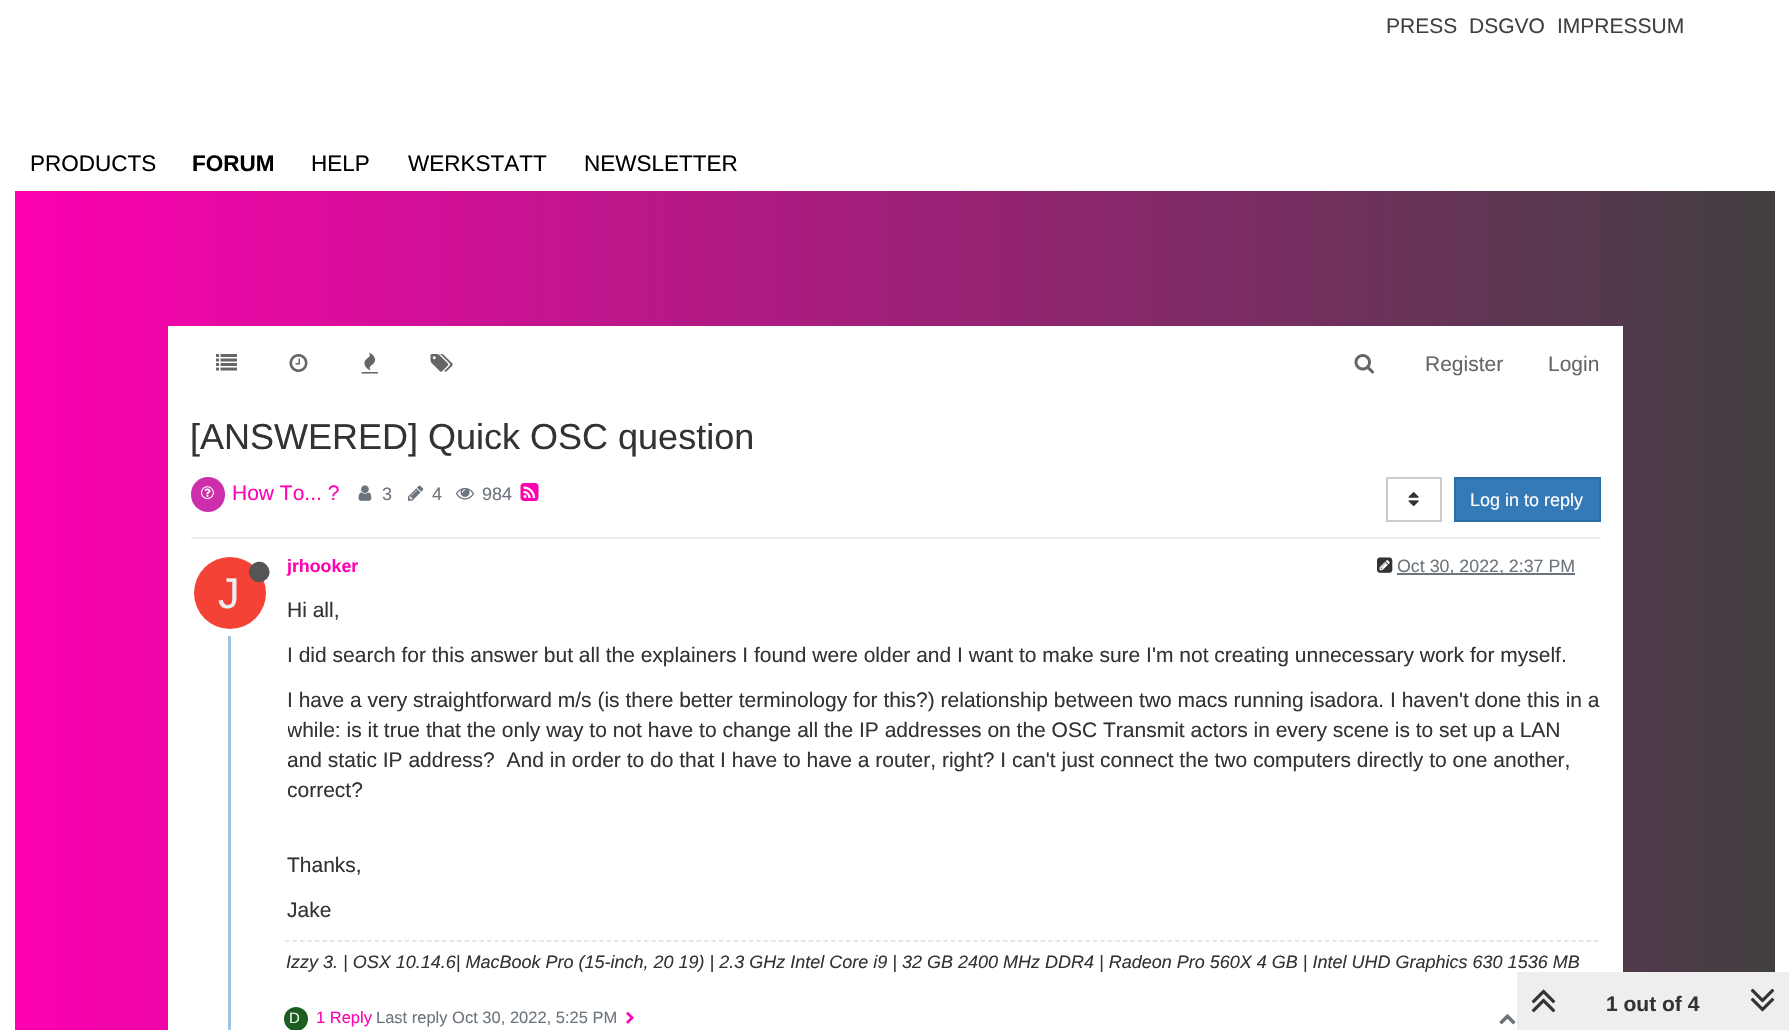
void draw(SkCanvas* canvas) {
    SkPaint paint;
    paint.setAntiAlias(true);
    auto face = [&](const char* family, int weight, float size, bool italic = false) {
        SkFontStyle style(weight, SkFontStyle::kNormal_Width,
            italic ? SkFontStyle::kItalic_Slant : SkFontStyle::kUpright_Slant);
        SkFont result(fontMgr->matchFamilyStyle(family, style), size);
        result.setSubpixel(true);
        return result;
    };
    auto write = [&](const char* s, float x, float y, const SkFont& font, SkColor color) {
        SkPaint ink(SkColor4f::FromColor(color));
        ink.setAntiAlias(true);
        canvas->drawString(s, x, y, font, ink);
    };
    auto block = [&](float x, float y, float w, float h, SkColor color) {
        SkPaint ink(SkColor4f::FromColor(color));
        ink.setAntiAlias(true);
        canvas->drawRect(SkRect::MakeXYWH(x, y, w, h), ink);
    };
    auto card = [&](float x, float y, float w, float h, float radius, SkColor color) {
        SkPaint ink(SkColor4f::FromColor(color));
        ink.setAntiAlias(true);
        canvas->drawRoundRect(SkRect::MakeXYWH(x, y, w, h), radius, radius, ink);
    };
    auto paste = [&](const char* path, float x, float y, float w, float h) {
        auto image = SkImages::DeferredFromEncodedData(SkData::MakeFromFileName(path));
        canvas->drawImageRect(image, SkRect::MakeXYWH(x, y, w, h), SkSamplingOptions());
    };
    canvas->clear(SK_ColorWHITE);
    {
        const SkColor colors[] = {SkColorSetRGB(255, 0, 178), SkColorSetRGB(64, 64, 64)};
        const float stops[] = {0, 1};
        const SkPoint ends[] = {{0, 515}, {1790, 515}};
        paint.setShader(SkGradientShader::MakeLinear(ends, colors, stops, 2, SkTileMode::kClamp));
        paint.setAlpha(255);
    }
    canvas->drawRect(SkRect::MakeXYWH(15, 191, 1760, 839), paint);
    auto kFont1 = face("Liberation Sans", 400, 21);
    write("PRESS", 1386, 33, kFont1, SkColorSetRGB(64, 64, 64));
    write("DSGVO", 1469, 33, kFont1, SkColorSetRGB(64, 64, 64));
    write("IMPRESSUM", 1557, 33, kFont1, SkColorSetRGB(64, 64, 64));
    auto kFont2 = face("Liberation Sans", 400, 22.5f);
    write("PRODUCTS", 30, 171, kFont2, SK_ColorBLACK);
    auto kFont3 = face("Liberation Sans", 700, 22.5f);
    write("FORUM", 192, 171, kFont3, SK_ColorBLACK);
    write("HELP", 311, 171, kFont2, SK_ColorBLACK);
    write("WERKSTATT", 408, 171, kFont2, SK_ColorBLACK);
    write("NEWSLETTER", 584, 171, kFont2, SK_ColorBLACK);
    block(168, 326, 1455, 704, SK_ColorWHITE);
    paste("pic1.png", 216, 354, 21, 17);
    paste("pic2.png", 289, 354, 19, 18);
    paste("pic3.png", 361, 352, 17, 22);
    paste("pic4.png", 430, 354, 23, 18);
    paste("pic5.png", 1354, 354, 20, 20);
    write("Register", 1425, 371, kFont1, SkColorSetRGB(102, 102, 102));
    write("Login", 1548, 371, kFont1, SkColorSetRGB(102, 102, 102));
    auto kFont4 = face("Liberation Sans", 400, 36);
    write("[ANSWERED] Quick OSC question", 190, 449, kFont4, SkColorSetRGB(51, 51, 51));
    block(191, 537, 1410, 2, SkColorSetRGB(238, 238, 238));
    card(191, 477, 34, 35, 17, SkColorSetRGB(205, 47, 172));
    paste("pic6.png", 201, 486, 13, 14);
    write("How To... ?", 232, 500, kFont1, SkColorSetRGB(255, 0, 178));
    paste("pic7.png", 358, 485, 14, 16);
    auto kFont5 = face("Liberation Sans", 400, 18);
    write("3", 382, 500, kFont5, SkColorSetRGB(108, 117, 125));
    paste("pic8.png", 408, 485, 16, 16);
    write("4", 432, 500, kFont5, SkColorSetRGB(108, 117, 125));
    paste("pic9.png", 456, 487, 18, 13);
    write("984", 482, 500, kFont5, SkColorSetRGB(108, 117, 125));
    paste("pic10.png", 520, 483, 19, 18);
    paint.setStyle(SkPaint::kStroke_Style);
    paint.setStrokeWidth(2);
    paint.setShader(nullptr);
    paint.setColor(SkColorSetRGB(204, 204, 204));
    canvas->drawRect(SkRect::MakeXYWH(1387, 478, 54, 43), paint);
    paste("pic11.png", 1408, 492, 11, 15);
    paint.setStyle(SkPaint::kFill_Style);
    paint.setColor(SkColorSetRGB(51, 122, 183));
    canvas->drawRect(SkRect::MakeXYWH(1455, 478, 145, 43), paint);
    paint.setStyle(SkPaint::kStroke_Style);
    paint.setColor(SkColorSetRGB(46, 109, 164));
    canvas->drawRect(SkRect::MakeXYWH(1455, 478, 145, 43), paint);
    write("Log in to reply", 1470, 506, kFont5, SK_ColorWHITE);
    block(228, 554, 3, 476, SkColorSetRGB(160, 196, 228));
    auto kFont6 = face("Liberation Sans", 700, 17.8f);
    write("jrhooker", 287, 572, kFont6, SkColorSetRGB(255, 0, 178));
    paste("pic12.png", 1377, 557, 16, 16);
    block(1397, 573, 178, 2, SkColorSetRGB(108, 117, 125));
    auto kFont7 = face("Liberation Sans", 400, 17.8f);
    write("Oct 30, 2022, 2:37 PM", 1397, 572, kFont7, SkColorSetRGB(108, 117, 125));
    paint.setStrokeWidth(8);
    paint.setColor(SK_ColorWHITE);
    canvas->drawCircle(229.5f, 592.5f, 39.5f, paint);
    paint.setStyle(SkPaint::kFill_Style);
    paint.setColor(SkColorSetRGB(244, 67, 54));
    canvas->drawCircle(230, 593, 36, paint);
    paint.setColor(SkColorSetRGB(85, 85, 85));
    canvas->drawPath(SkPathBuilder().moveTo(268, 567).cubicTo(275, 578.5f, 257, 589, 250.5f, 577).cubicTo(243.5f, 565.5f, 261.5f, 555, 268, 567).close().detach(), paint);
    auto kFont8 = face("Liberation Sans", 400, 43);
    write("J", 218, 608, kFont8, SkColorSetRGB(238, 238, 238));
    write("Hi all,", 287, 617, kFont1, SkColorSetRGB(51, 51, 51));
    write("I did search for this answer but all the explainers I found were older and I want to make sure I'm not creating unnecessary work for myself.", 287, 662, kFont1, SkColorSetRGB(51, 51, 51));
    write("I have a very straightforward m/s (is there better terminology for this?) relationship between two macs running isadora. I haven't done this in a", 287, 707, kFont1, SkColorSetRGB(51, 51, 51));
    canvas->save();
    canvas->clipRect(SkRect::MakeXYWH(288, 594, 1313, 347));
    write("while: is it true that the only way to not have to change all the IP addresses on the OSC Transmit actors in every scene is to set up a LAN", 287, 737, kFont1, SkColorSetRGB(51, 51, 51));
    canvas->restore();
    write("and static IP address?  And in order to do that I have to have a router, right? I can't just connect the two computers directly to one another,", 287, 767, kFont1, SkColorSetRGB(51, 51, 51));
    write("correct?", 287, 797, kFont1, SkColorSetRGB(51, 51, 51));
    write("Thanks,", 287, 872, kFont1, SkColorSetRGB(51, 51, 51));
    write("Jake", 287, 917, kFont1, SkColorSetRGB(51, 51, 51));
    paint.setStyle(SkPaint::kStroke_Style);
    paint.setStrokeWidth(1.5f);
    paint.setColor(SkColorSetRGB(222, 222, 222));
    paint.setPathEffect(SkDashPathEffect::Make({{4.5f, 2.98f}}, 0));
    canvas->drawPath(SkPathBuilder().moveTo(285, 941).lineTo(1600.5f, 941).detach(), paint);
    paint.setPathEffect(nullptr);
    auto kFont9 = face("Liberation Sans", 400, 18, true);
    write("Izzy 3. | OSX 10.14.6| MacBook Pro (15-inch, 20 19) | 2.3 GHz Intel Core i9 | 32 GB 2400 MHz DDR4 | Radeon Pro 560X 4 GB | Intel UHD Graphics 630 1536 MB", 286, 968, kFont9, SkColorSetRGB(51, 51, 51));
    paint.setStyle(SkPaint::kFill_Style);
    paint.setColor(SkColorSetRGB(27, 94, 32));
    canvas->drawCircle(296, 1019, 12, paint);
    auto kFont10 = face("Liberation Sans", 400, 15);
    write("D", 289, 1023, kFont10, SkColorSetRGB(238, 238, 238));
    auto kFont11 = face("Liberation Sans", 400, 16.5f);
    write("1 Reply", 316, 1023, kFont11, SkColorSetRGB(255, 0, 178));
    write("Last reply Oct 30, 2022, 5:25 PM", 376, 1023, kFont11, SkColorSetRGB(108, 117, 125));
    paste("pic13.png", 626, 1011, 8, 13);
    paste("pic14.png", 1499, 1014, 17, 11);
    block(1517, 972, 272, 58, SkColorSetRGB(238, 238, 238));
    paste("pic15.png", 1531, 989, 25, 24);
    auto kFont12 = face("Liberation Sans", 700, 21);
    write("1 out of 4", 1606, 1011, kFont12, SkColorSetRGB(51, 51, 51));
    paste("pic16.png", 1750, 988, 25, 24);
}
